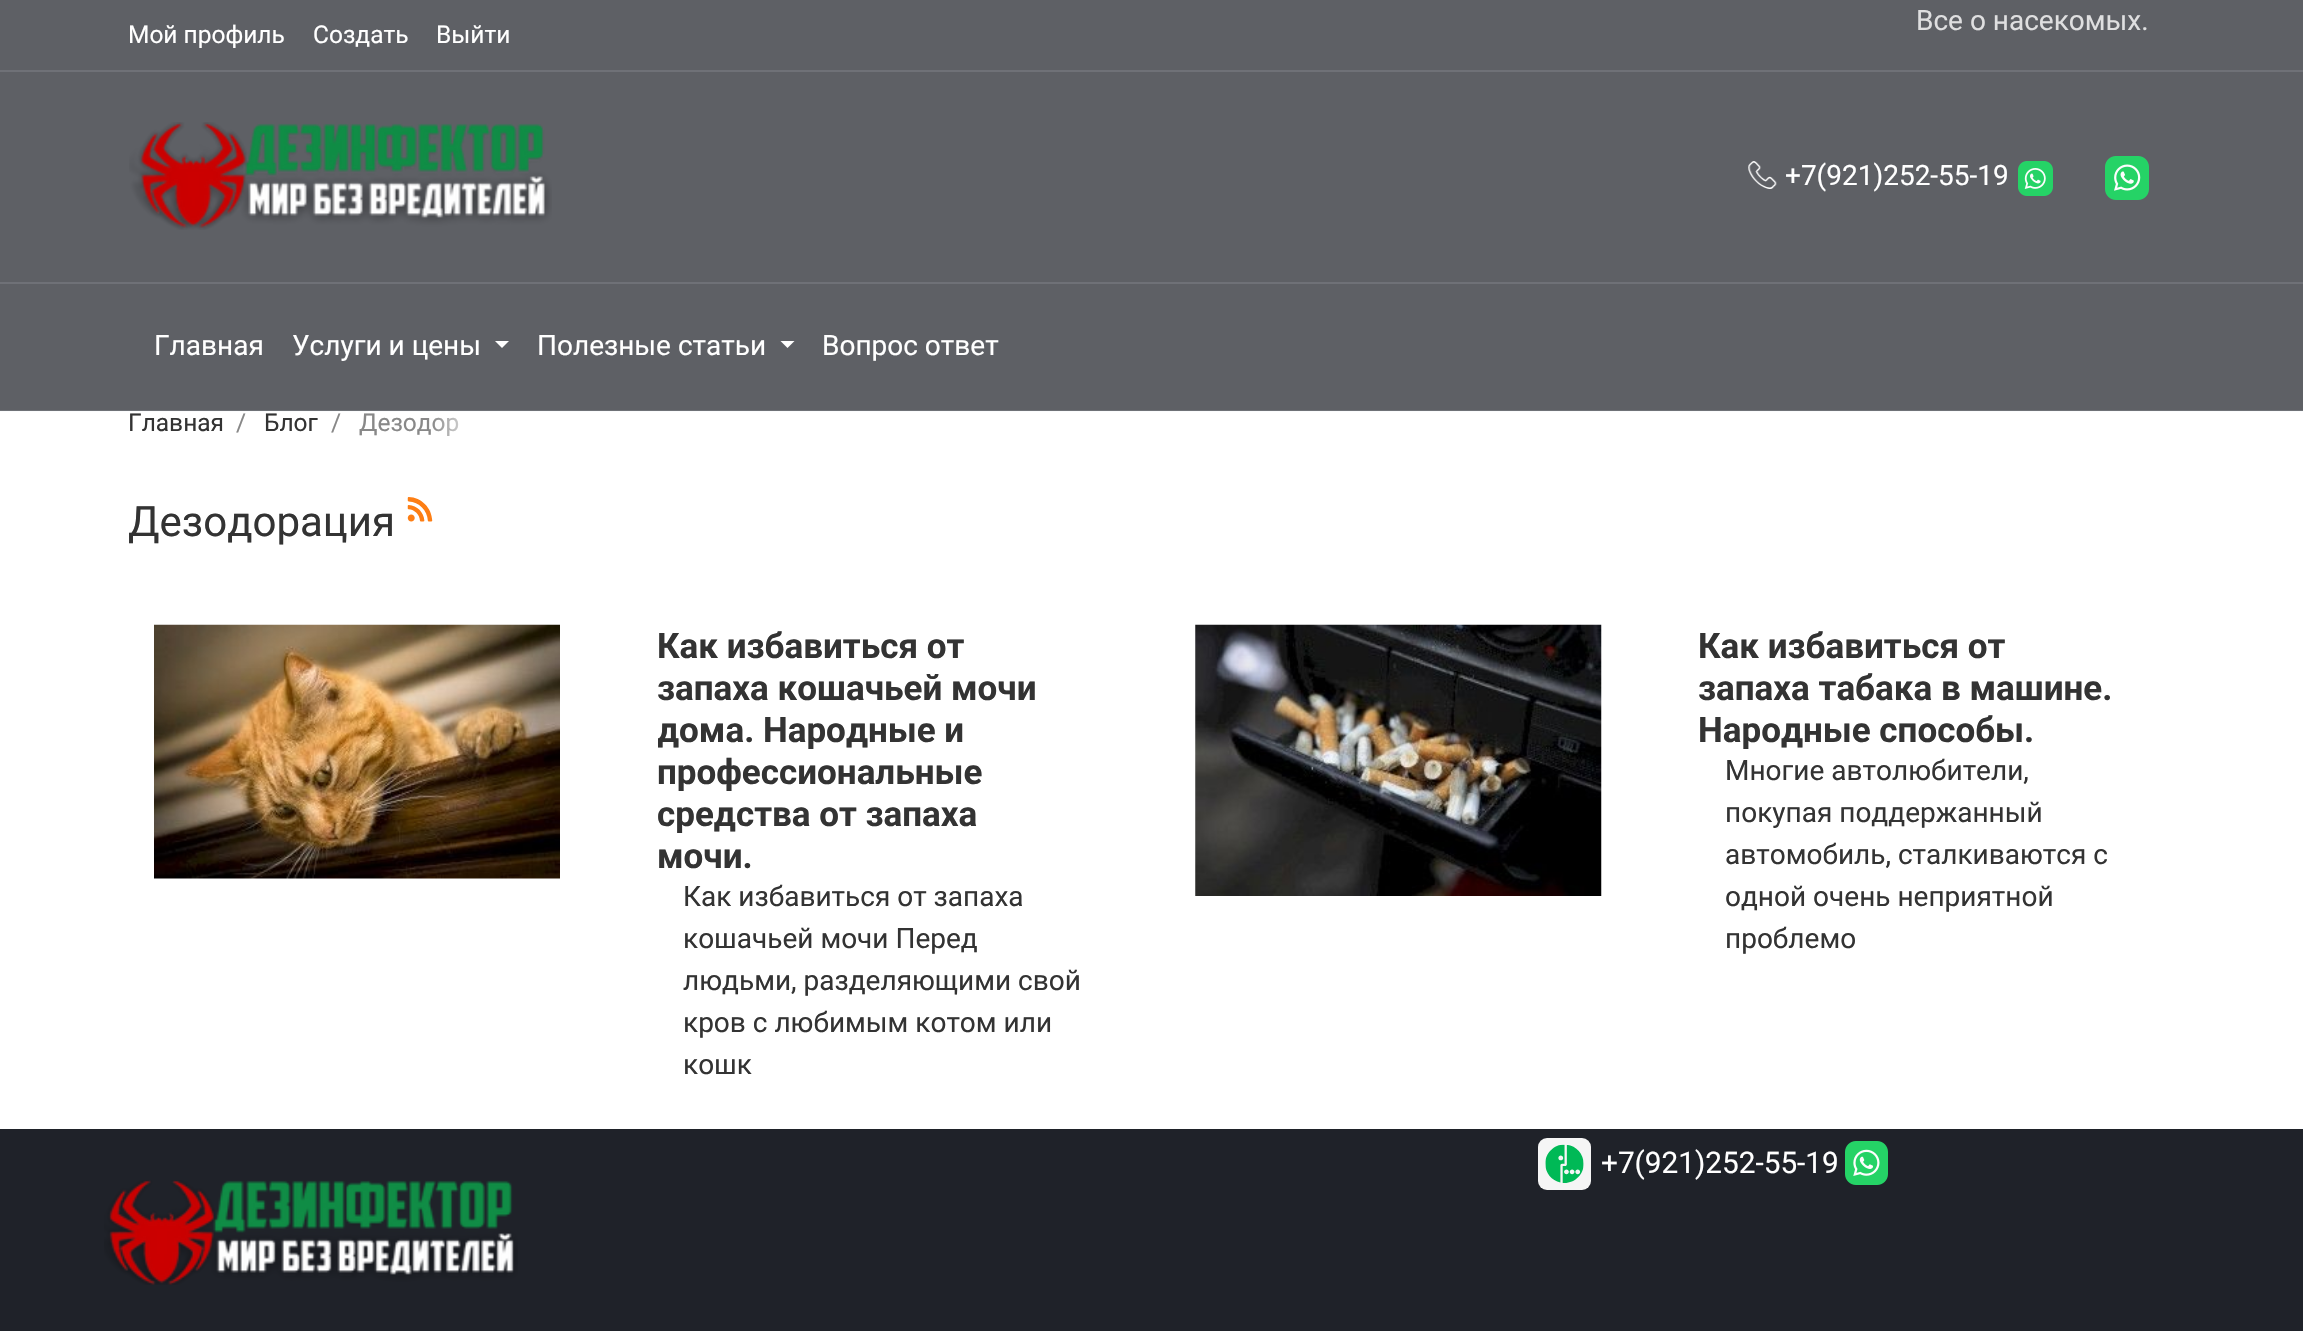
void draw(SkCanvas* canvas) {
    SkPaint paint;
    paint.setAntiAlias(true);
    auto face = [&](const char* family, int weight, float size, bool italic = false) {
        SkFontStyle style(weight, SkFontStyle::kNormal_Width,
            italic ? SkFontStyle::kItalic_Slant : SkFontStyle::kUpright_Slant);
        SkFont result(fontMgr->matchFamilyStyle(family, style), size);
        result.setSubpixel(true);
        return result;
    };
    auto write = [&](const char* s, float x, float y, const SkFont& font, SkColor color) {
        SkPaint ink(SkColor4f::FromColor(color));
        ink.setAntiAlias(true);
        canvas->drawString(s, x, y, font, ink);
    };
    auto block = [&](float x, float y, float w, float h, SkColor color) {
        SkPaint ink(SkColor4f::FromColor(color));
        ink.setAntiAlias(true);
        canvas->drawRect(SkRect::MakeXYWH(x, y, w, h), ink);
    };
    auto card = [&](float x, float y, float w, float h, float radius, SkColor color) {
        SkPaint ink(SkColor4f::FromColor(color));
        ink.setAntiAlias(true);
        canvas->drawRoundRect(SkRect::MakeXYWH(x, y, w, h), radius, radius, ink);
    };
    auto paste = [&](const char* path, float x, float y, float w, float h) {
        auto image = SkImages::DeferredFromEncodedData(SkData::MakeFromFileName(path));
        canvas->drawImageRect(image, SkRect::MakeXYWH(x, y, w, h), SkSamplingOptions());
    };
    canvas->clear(SK_ColorWHITE);
    block(0, 0, 2303, 70, SkColorSetRGB(94, 96, 101));
    block(0, 70, 2303, 2, SkColorSetRGB(111, 113, 119));
    auto kFont1 = face("Roboto", 400, 28);
    write("Все о насекомых.", 1916, 30, kFont1, SkColorSetRGB(223, 223, 224));
    auto kFont2 = face("Roboto", 400, 24.5f);
    write("Мой профиль", 128, 43, kFont2, SK_ColorWHITE);
    write("Создать", 313, 43, kFont2, SK_ColorWHITE);
    write("Выйти", 436, 43, kFont2, SK_ColorWHITE);
    block(0, 72, 2303, 210, SkColorSetRGB(94, 96, 101));
    block(0, 282, 2303, 2, SkColorSetRGB(111, 113, 119));
    paste("pic1.png", 129, 122, 423, 108);
    paste("pic2.png", 1748, 161, 29, 28);
    write("+7(921)252-55-19", 1785, 185, kFont1, SK_ColorWHITE);
    paste("pic3.png", 2018, 161, 35, 35);
    paste("pic4.png", 2105, 156, 44, 44);
    write("Дезодор", 359, 431, kFont2, SkColorSetRGB(136, 136, 136));
    {
        const SkColor colors[] = {SK_ColorWHITE, SkColorSetARGB(0, 255, 255, 255)};
        const float stops[] = {0.4f, 1};
        const SkPoint ends[] = {{515, 423}, {431, 423}};
        paint.setShader(SkGradientShader::MakeLinear(ends, colors, stops, 2, SkTileMode::kClamp));
        paint.setAlpha(255);
    }
    canvas->drawPath(SkPathBuilder().moveTo(431, 383).lineTo(508, 383).cubicTo(512, 383, 515, 386, 515, 390).lineTo(515, 455).cubicTo(515, 459, 512, 462, 508, 462).lineTo(431, 462).close().detach(), paint);
    block(0, 284, 2303, 127, SkColorSetRGB(94, 96, 101));
    block(0, 410, 2303, 2, SkColorSetARGB(33, 223, 228, 236));
    write("Главная", 154, 355, kFont1, SK_ColorWHITE);
    write("Услуги и цены", 292, 355, kFont1, SK_ColorWHITE);
    paint.setShader(nullptr);
    paint.setColor(SK_ColorWHITE);
    canvas->drawPath(SkPathBuilder().moveTo(495, 341).lineTo(509, 341).lineTo(502, 348).close().detach(), paint);
    write("Полезные статьи", 537, 355, kFont1, SK_ColorWHITE);
    canvas->drawPath(SkPathBuilder().moveTo(780.5f, 341).lineTo(794.5f, 341).lineTo(787.5f, 348).close().detach(), paint);
    write("Вопрос ответ", 822, 355, kFont1, SK_ColorWHITE);
    write("Главная", 128, 431, kFont2, SkColorSetRGB(51, 51, 51));
    write("/", 236, 431, kFont2, SkColorSetRGB(136, 136, 136));
    write("Блог", 264, 431, kFont2, SkColorSetRGB(51, 51, 51));
    write("/", 331, 431, kFont2, SkColorSetRGB(136, 136, 136));
    auto kFont3 = face("Roboto", 400, 42);
    write("Дезодорация", 128, 536, kFont3, SkColorSetRGB(51, 51, 51));
    paste("pic5.png", 407, 497, 26, 25);
    paste("pic6.png", 154, 624, 406, 255);
    auto kFont4 = face("Roboto", 700, 35);
    write("Как избавиться от", 657, 658, kFont4, SkColorSetRGB(51, 51, 51));
    write("запаха кошачьей мочи", 657, 700, kFont4, SkColorSetRGB(51, 51, 51));
    canvas->save();
    canvas->clipRect(SkRect::MakeXYWH(658, 625, 450, 252));
    write("дома. Народные и", 657, 742, kFont4, SkColorSetRGB(51, 51, 51));
    canvas->restore();
    write("профессиональные", 657, 784, kFont4, SkColorSetRGB(51, 51, 51));
    write("средства от запаха", 657, 826, kFont4, SkColorSetRGB(51, 51, 51));
    write("мочи.", 657, 868, kFont4, SkColorSetRGB(51, 51, 51));
    write("Как избавиться от запаха", 683, 906, kFont1, SkColorSetRGB(51, 51, 51));
    write("кошачьей мочи Перед", 683, 948, kFont1, SkColorSetRGB(51, 51, 51));
    write("людьми, разделяющими свой", 683, 990, kFont1, SkColorSetRGB(51, 51, 51));
    write("кров с любимым котом или", 683, 1032, kFont1, SkColorSetRGB(51, 51, 51));
    write("кошк", 683, 1074, kFont1, SkColorSetRGB(51, 51, 51));
    paste("pic7.png", 1195, 624, 407, 272);
    write("Как избавиться от", 1698, 658, kFont4, SkColorSetRGB(51, 51, 51));
    write("запаха табака в машине.", 1698, 700, kFont4, SkColorSetRGB(51, 51, 51));
    write("Народные способы.", 1698, 742, kFont4, SkColorSetRGB(51, 51, 51));
    write("Многие автолюбители,", 1725, 780, kFont1, SkColorSetRGB(51, 51, 51));
    write("покупая поддержанный", 1725, 822, kFont1, SkColorSetRGB(51, 51, 51));
    write("автомобиль, сталкиваются с", 1725, 864, kFont1, SkColorSetRGB(51, 51, 51));
    write("одной очень неприятной", 1725, 906, kFont1, SkColorSetRGB(51, 51, 51));
    write("проблемо", 1725, 948, kFont1, SkColorSetRGB(51, 51, 51));
    block(0, 1129, 2303, 202, SkColorSetRGB(31, 34, 41));
    card(1538, 1138, 53, 52, 9, SkColorSetRGB(245, 245, 245));
    paste("pic8.png", 1545, 1144, 39, 39);
    auto kFont5 = face("Roboto", 400, 29.75f);
    write("+7(921)252-55-19", 1601, 1173, kFont5, SK_ColorWHITE);
    paste("pic9.png", 1845, 1141, 43, 44);
    paste("pic10.png", 104, 1180, 414, 105);
}
